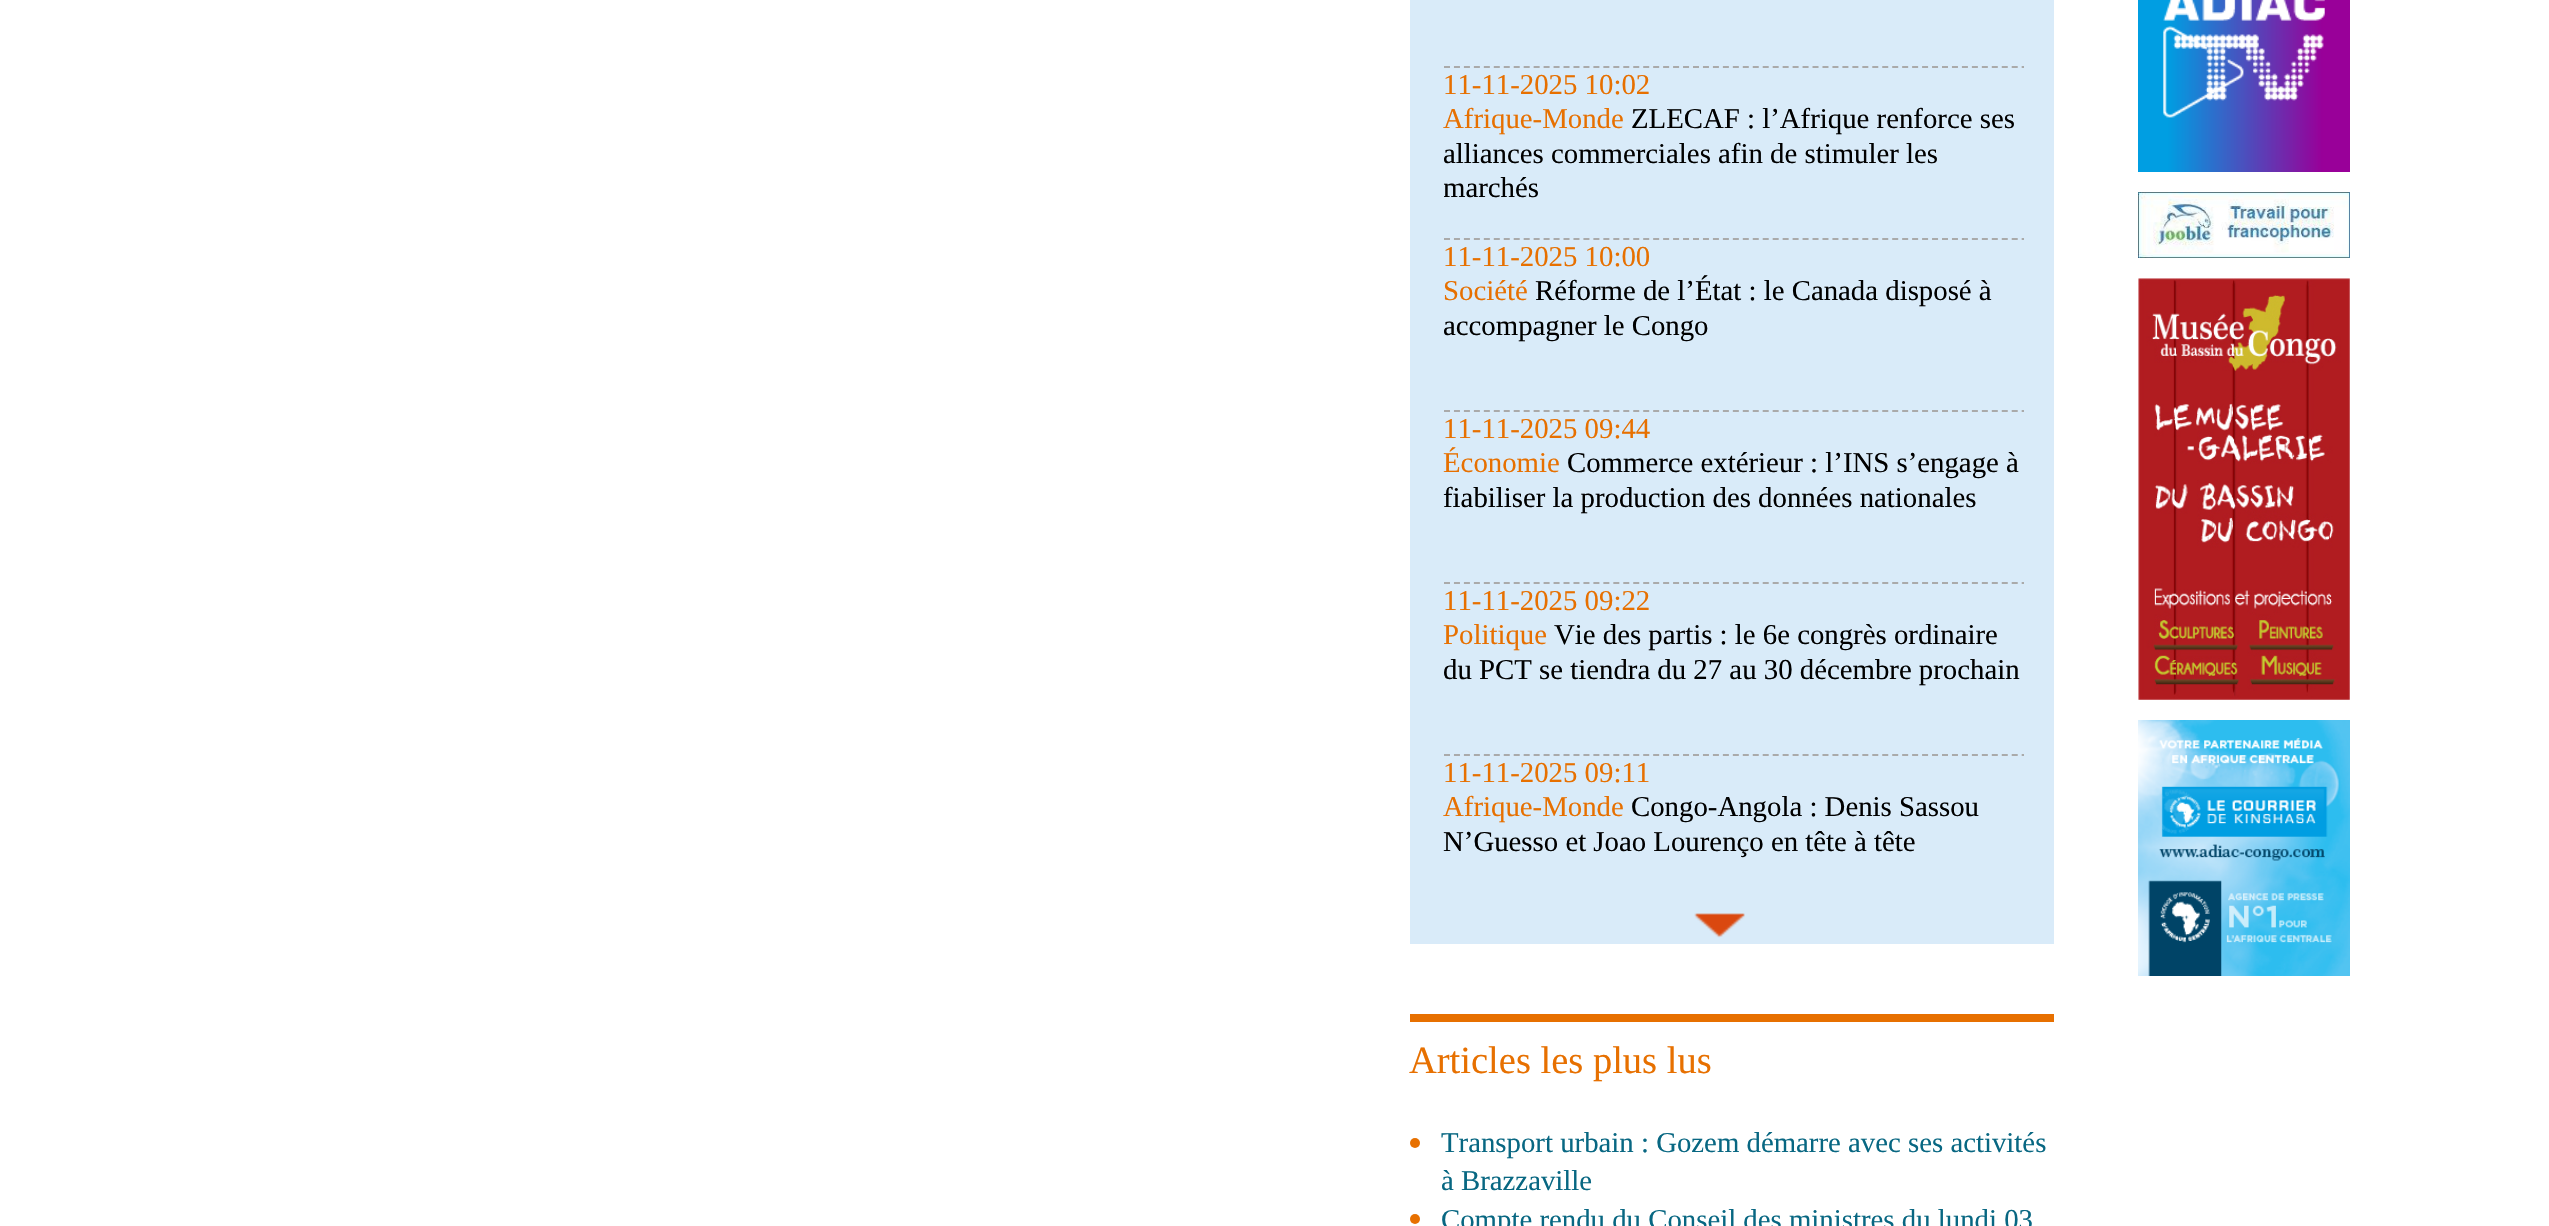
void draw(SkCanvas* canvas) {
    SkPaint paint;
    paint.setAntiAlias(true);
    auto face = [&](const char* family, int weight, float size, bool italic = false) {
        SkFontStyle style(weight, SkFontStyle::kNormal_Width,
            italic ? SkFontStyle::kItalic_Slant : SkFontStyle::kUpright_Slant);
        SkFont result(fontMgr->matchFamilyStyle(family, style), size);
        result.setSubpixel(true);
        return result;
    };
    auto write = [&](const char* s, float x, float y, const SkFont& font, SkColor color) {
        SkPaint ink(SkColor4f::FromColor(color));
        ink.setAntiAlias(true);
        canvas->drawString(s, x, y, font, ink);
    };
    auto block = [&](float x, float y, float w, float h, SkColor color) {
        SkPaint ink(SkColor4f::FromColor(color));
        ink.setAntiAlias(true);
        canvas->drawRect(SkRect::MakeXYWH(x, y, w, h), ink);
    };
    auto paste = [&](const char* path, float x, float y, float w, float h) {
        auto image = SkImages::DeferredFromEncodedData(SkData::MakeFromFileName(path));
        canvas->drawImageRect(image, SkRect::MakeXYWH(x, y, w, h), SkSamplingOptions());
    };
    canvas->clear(SK_ColorWHITE);
    block(1410, 0, 644, 944, SkColorSetRGB(217, 235, 249));
    canvas->save();
    canvas->clipRect(SkRect::MakeXYWH(1440, 0, 584, 914));
    paint.setStyle(SkPaint::kStroke_Style);
    paint.setStrokeWidth(2);
    paint.setColor(SkColorSetRGB(170, 170, 170));
    paint.setPathEffect(SkDashPathEffect::Make({{6, 3.96f}}, 0));
    canvas->drawPath(SkPathBuilder().moveTo(1444, 67).lineTo(2028, 67).detach(), paint);
    paint.setPathEffect(nullptr);
    paint.setPathEffect(SkDashPathEffect::Make({{6, 3.96f}}, 0));
    canvas->drawPath(SkPathBuilder().moveTo(1444, 239).lineTo(2028, 239).detach(), paint);
    paint.setPathEffect(nullptr);
    canvas->restore();
    auto kFont1 = face("Liberation Serif", 400, 28.8f);
    write("11-11-2025 10:02", 1443, 94, kFont1, SkColorSetRGB(231, 112, 0));
    write("Afrique-Monde", 1443, 128, kFont1, SkColorSetRGB(231, 112, 0));
    write("ZLECAF : l’Afrique renforce ses", 1631, 128, kFont1, SK_ColorBLACK);
    write("alliances commerciales afin de stimuler les", 1443, 163, kFont1, SK_ColorBLACK);
    canvas->save();
    canvas->clipRect(SkRect::MakeXYWH(1444, 68, 580, 170));
    write("marchés", 1443, 197, kFont1, SK_ColorBLACK);
    canvas->restore();
    canvas->save();
    canvas->clipRect(SkRect::MakeXYWH(1440, 0, 584, 914));
    paint.setPathEffect(SkDashPathEffect::Make({{6, 3.96f}}, 0));
    canvas->drawPath(SkPathBuilder().moveTo(1444, 411).lineTo(2028, 411).detach(), paint);
    paint.setPathEffect(nullptr);
    canvas->restore();
    write("11-11-2025 10:00", 1443, 266, kFont1, SkColorSetRGB(231, 112, 0));
    write("Société", 1443, 300, kFont1, SkColorSetRGB(231, 112, 0));
    write("Réforme de l’État : le Canada disposé à", 1535, 300, kFont1, SK_ColorBLACK);
    write("accompagner le Congo", 1443, 335, kFont1, SK_ColorBLACK);
    canvas->save();
    canvas->clipRect(SkRect::MakeXYWH(1440, 0, 584, 914));
    paint.setPathEffect(SkDashPathEffect::Make({{6, 3.96f}}, 0));
    canvas->drawPath(SkPathBuilder().moveTo(1444, 583).lineTo(2028, 583).detach(), paint);
    paint.setPathEffect(nullptr);
    canvas->restore();
    write("11-11-2025 09:44", 1443, 438, kFont1, SkColorSetRGB(231, 112, 0));
    write("Économie", 1443, 472, kFont1, SkColorSetRGB(231, 112, 0));
    write("Commerce extérieur : l’INS s’engage à", 1567, 472, kFont1, SK_ColorBLACK);
    write("fiabiliser la production des données nationales", 1443, 507, kFont1, SK_ColorBLACK);
    canvas->save();
    canvas->clipRect(SkRect::MakeXYWH(1440, 0, 584, 914));
    paint.setPathEffect(SkDashPathEffect::Make({{6, 3.96f}}, 0));
    canvas->drawPath(SkPathBuilder().moveTo(1444, 755).lineTo(2028, 755).detach(), paint);
    paint.setPathEffect(nullptr);
    canvas->restore();
    write("11-11-2025 09:22", 1443, 610, kFont1, SkColorSetRGB(231, 112, 0));
    write("Politique", 1443, 644, kFont1, SkColorSetRGB(231, 112, 0));
    write("Vie des partis : le 6e congrès ordinaire", 1554, 644, kFont1, SK_ColorBLACK);
    write("du PCT se tiendra du 27 au 30 décembre prochain", 1443, 679, kFont1, SK_ColorBLACK);
    write("11-11-2025 09:11", 1443, 782, kFont1, SkColorSetRGB(231, 112, 0));
    write("Afrique-Monde", 1443, 816, kFont1, SkColorSetRGB(231, 112, 0));
    write("Congo-Angola : Denis Sassou", 1631, 816, kFont1, SK_ColorBLACK);
    write("N’Guesso et Joao Lourenço en tête à tête", 1443, 851, kFont1, SK_ColorBLACK);
    paste("pic1.png", 1694, 913, 51, 25);
    block(1410, 1014, 644, 8, SkColorSetRGB(231, 112, 0));
    auto kFont2 = face("Liberation Serif", 400, 38.5f);
    write("Articles les plus lus", 1409, 1073, kFont2, SkColorSetRGB(231, 112, 0));
    paint.setStyle(SkPaint::kFill_Style);
    paint.setColor(SkColorSetRGB(231, 112, 0));
    canvas->drawCircle(1415, 1143, 5, paint);
    write("Transport urbain : Gozem démarre avec ses activités", 1441, 1152, kFont1, SkColorSetRGB(8, 103, 130));
    write("à Brazzaville", 1441, 1190, kFont1, SkColorSetRGB(8, 103, 130));
    canvas->drawCircle(1415, 1219, 5, paint);
    write("Compte rendu du Conseil des ministres du lundi 03", 1441, 1229, kFont1, SkColorSetRGB(8, 103, 130));
    paste("pic2.png", 2138, 0, 212, 172);
    paste("pic3.png", 2138, 192, 212, 66);
    paste("pic4.png", 2138, 278, 212, 422);
    paste("pic5.png", 2138, 720, 212, 256);
}
